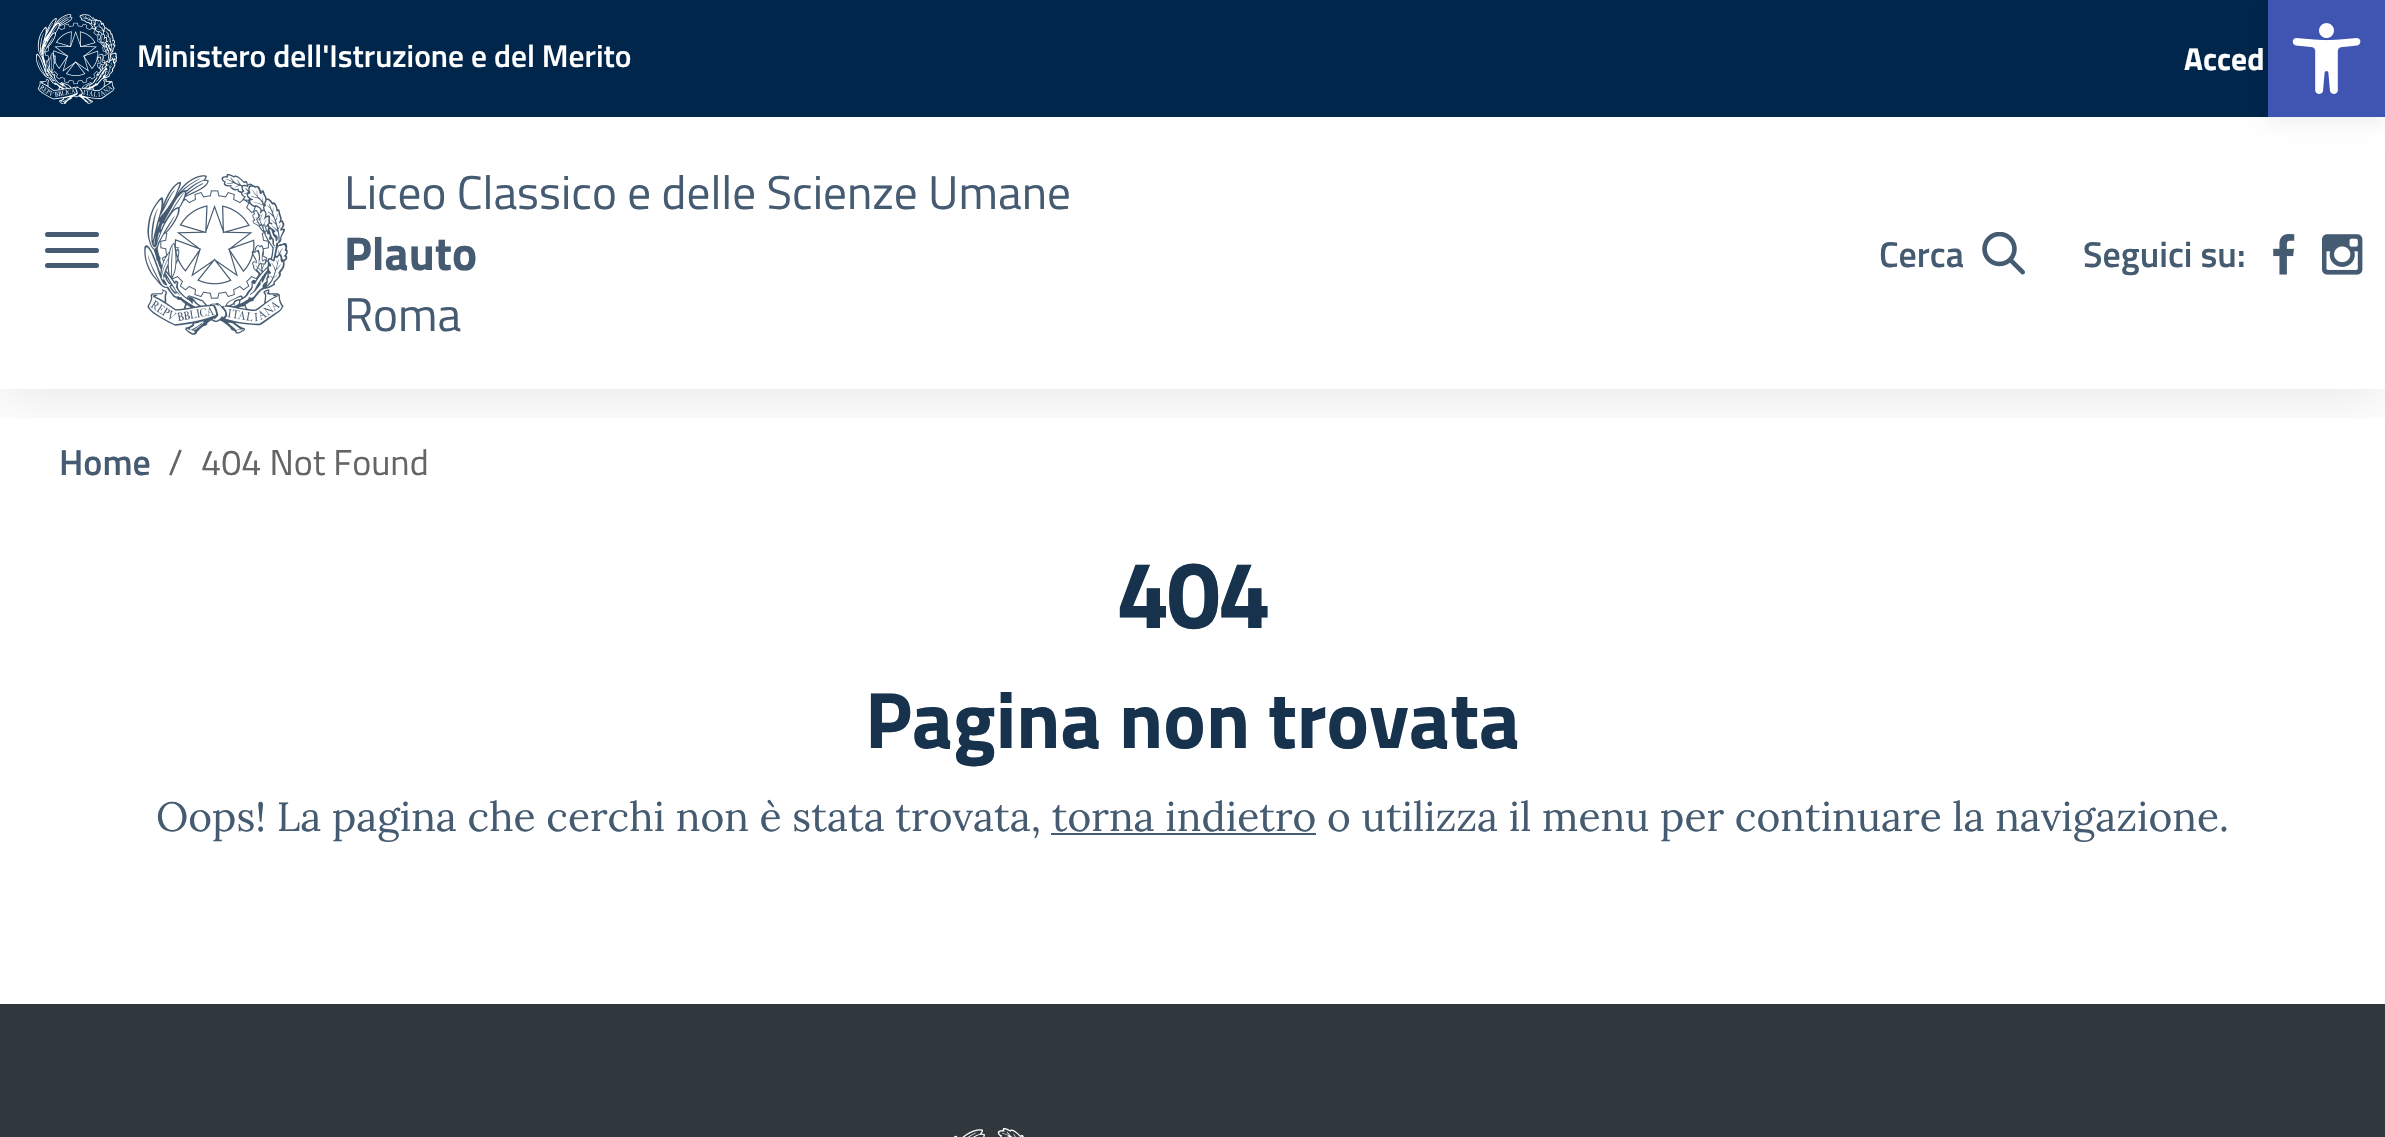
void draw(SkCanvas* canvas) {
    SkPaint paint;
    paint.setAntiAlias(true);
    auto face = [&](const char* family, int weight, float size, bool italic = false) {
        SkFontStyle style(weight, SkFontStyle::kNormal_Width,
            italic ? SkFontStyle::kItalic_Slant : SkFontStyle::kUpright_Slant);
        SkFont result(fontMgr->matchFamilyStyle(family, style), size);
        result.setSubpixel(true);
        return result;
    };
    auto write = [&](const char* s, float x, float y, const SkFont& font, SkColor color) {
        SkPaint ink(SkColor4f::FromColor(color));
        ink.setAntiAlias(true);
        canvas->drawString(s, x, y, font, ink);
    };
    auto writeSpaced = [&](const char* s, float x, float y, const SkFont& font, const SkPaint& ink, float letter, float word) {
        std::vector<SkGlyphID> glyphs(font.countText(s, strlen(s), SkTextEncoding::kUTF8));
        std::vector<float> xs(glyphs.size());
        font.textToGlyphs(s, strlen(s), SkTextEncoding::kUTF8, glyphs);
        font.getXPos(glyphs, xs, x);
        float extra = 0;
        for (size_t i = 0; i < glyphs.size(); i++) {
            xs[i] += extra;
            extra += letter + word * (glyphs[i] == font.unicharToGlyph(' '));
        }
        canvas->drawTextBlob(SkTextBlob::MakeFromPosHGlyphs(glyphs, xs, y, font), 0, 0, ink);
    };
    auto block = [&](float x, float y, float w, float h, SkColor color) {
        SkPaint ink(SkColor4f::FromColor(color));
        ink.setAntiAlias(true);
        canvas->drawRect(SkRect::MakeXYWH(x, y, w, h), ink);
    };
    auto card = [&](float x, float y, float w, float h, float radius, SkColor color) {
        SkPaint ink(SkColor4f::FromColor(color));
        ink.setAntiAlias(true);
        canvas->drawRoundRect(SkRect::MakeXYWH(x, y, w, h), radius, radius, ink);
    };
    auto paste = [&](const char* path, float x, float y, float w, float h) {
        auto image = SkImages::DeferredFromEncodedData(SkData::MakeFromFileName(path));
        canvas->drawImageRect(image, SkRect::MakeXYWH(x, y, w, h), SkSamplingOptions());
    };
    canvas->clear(SK_ColorWHITE);
    canvas->save();
    canvas->clipRect(SkRect::MakeXYWH(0, 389, 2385, 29));
    paint.setColor(SkColorSetARGB(26, 0, 0, 0));
    paint.setMaskFilter(SkMaskFilter::MakeBlur(kNormal_SkBlurStyle, 28));
    canvas->drawRect(SkRect::MakeXYWH(0, 5, 2385, 389), paint);
    paint.setMaskFilter(nullptr);
    canvas->restore();
    block(0, 0, 2268, 117, SkColorSetRGB(0, 38, 76));
    paste("pic1.png", 36, 14, 81, 90);
    auto kFont1 = face("Titillium Web", 600, 31.5f);
    write("Ministero dell'Istruzione e del Merito", 137, 67, kFont1, SK_ColorWHITE);
    auto kFont2 = face("Titillium Web", 700, 31.5f);
    write("Acced", 2184, 70, kFont2, SK_ColorWHITE);
    card(45, 248, 54, 5, 2.5f, SkColorSetRGB(69, 91, 113));
    card(45, 232, 54, 5, 2.5f, SkColorSetRGB(69, 91, 113));
    card(45, 263, 54, 5, 2.5f, SkColorSetRGB(69, 91, 113));
    paste("pic2.png", 144, 173, 144, 162);
    auto kFont3 = face("Titillium Web", 400, 47.25f);
    write("Liceo Classico e delle Scienze Umane", 344, 209, kFont3, SkColorSetRGB(69, 91, 113));
    auto kFont4 = face("Titillium Web", 700, 47.25f);
    write("Plauto", 344, 270, kFont4, SkColorSetRGB(69, 91, 113));
    write("Roma", 344, 331, kFont3, SkColorSetRGB(69, 91, 113));
    auto kFont5 = face("Titillium Web", 600, 36);
    write("Cerca", 1879, 267, kFont5, SkColorSetRGB(69, 91, 113));
    paste("pic3.png", 1982, 232, 43, 43);
    write("Seguici su:", 2083, 267, kFont5, SkColorSetRGB(69, 91, 113));
    paste("pic4.png", 2273, 234, 22, 41);
    paste("pic5.png", 2322, 234, 41, 41);
    write("Home", 59, 475, kFont5, SkColorSetRGB(69, 91, 113));
    auto kFont6 = face("Titillium Web", 400, 36);
    write("/", 168, 475, kFont6, SkColorSetRGB(101, 101, 102));
    write("404 Not Found", 201, 475, kFont6, SkColorSetRGB(101, 101, 102));
    auto kFont7 = face("Titillium Web", 700, 96);
    paint.setColor(SkColorSetRGB(23, 50, 77));
    writeSpaced("404", 1116, 628, kFont7, paint, -3, 0);
    auto kFont8 = face("Titillium Web", 700, 80);
    write("Pagina non trovata", 865, 748, kFont8, SkColorSetRGB(23, 50, 77));
    auto kFont9 = face("Lora", 400, 40.68f);
    write("Oops! La pagina che cerchi non è stata trovata, torna indietro o utilizza il menu per continuare la navigazione.", 156, 831, kFont9, SkColorSetRGB(69, 91, 113));
    block(1051, 833, 265, 2, SkColorSetRGB(69, 91, 113));
    block(0, 1004, 2385, 133, SkColorSetRGB(48, 55, 61));
    paste("pic6.png", 953, 1127, 71, 10);
    paint.setColor(SkColorSetARGB(26, 0, 0, 0));
    paint.setMaskFilter(SkMaskFilter::MakeBlur(kNormal_SkBlurStyle, 11));
    canvas->drawRect(SkRect::MakeXYWH(2268, 0, 117, 117), paint);
    paint.setMaskFilter(nullptr);
    block(2268, 0, 117, 117, SkColorSetRGB(64, 84, 178));
    paste("pic7.png", 2292, 23, 69, 71);
}
